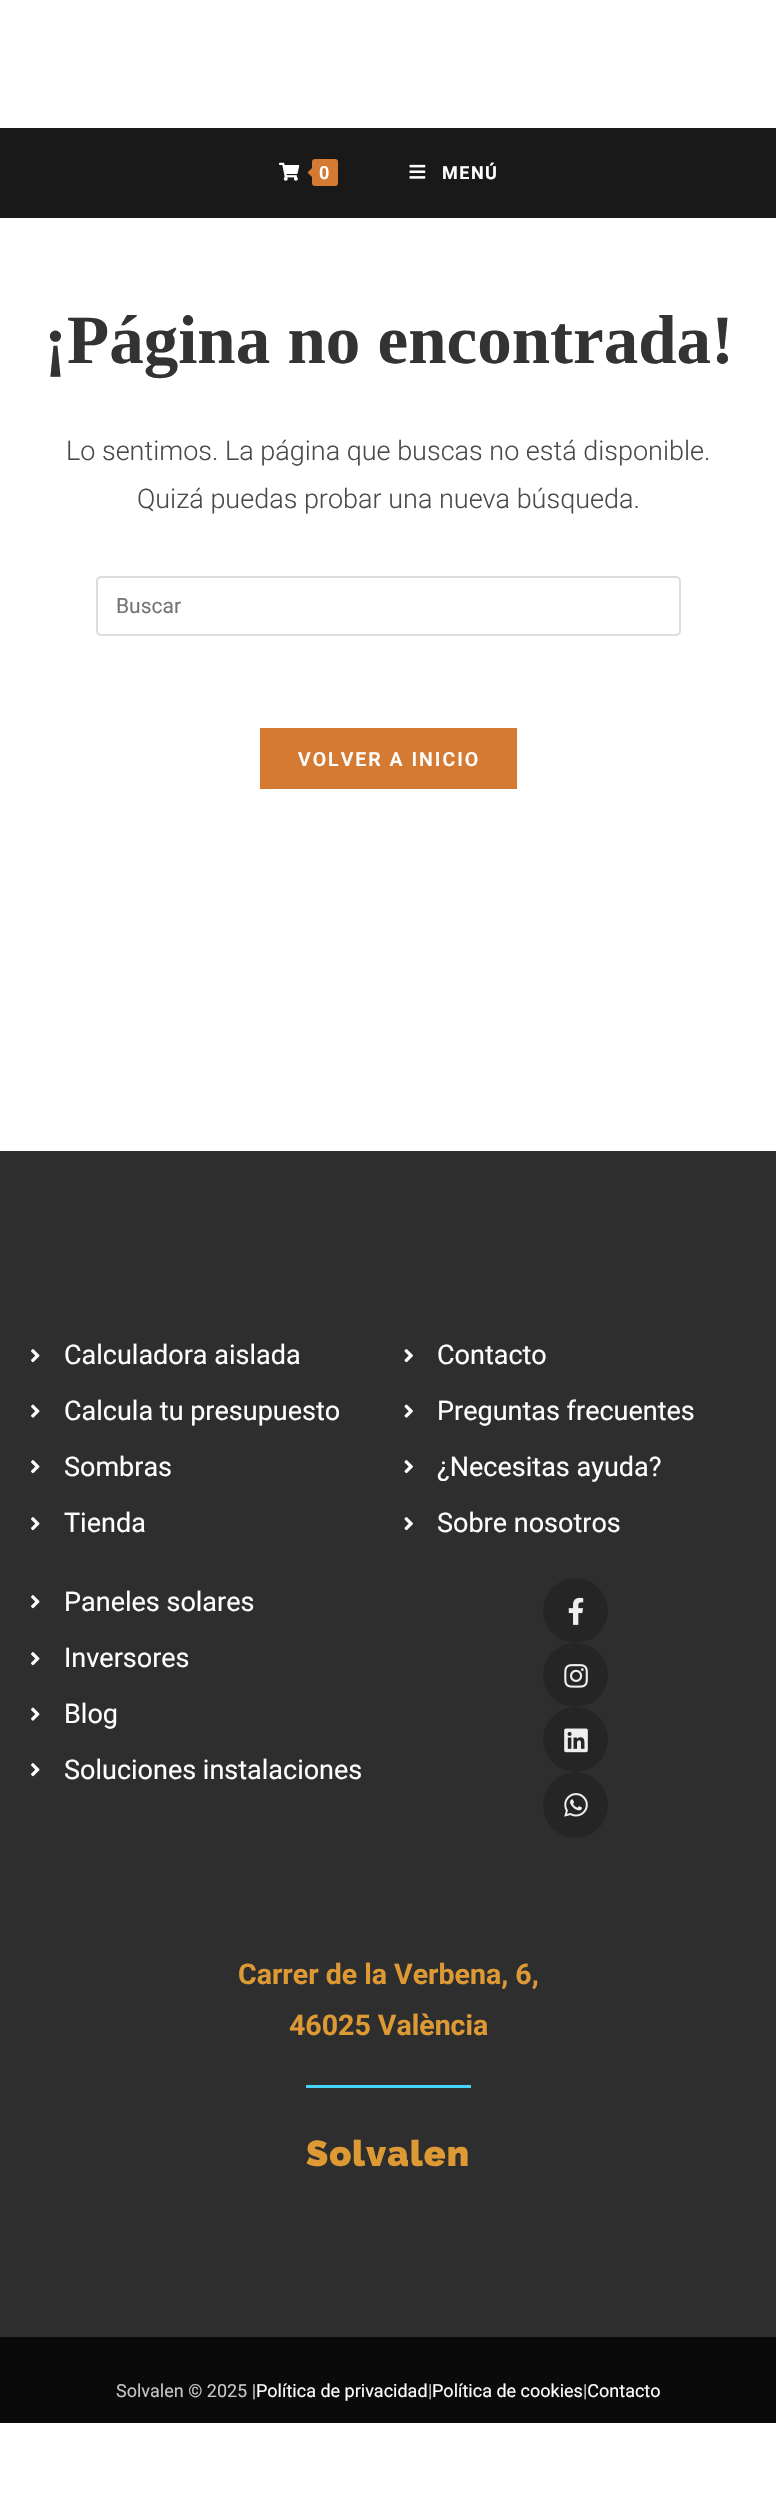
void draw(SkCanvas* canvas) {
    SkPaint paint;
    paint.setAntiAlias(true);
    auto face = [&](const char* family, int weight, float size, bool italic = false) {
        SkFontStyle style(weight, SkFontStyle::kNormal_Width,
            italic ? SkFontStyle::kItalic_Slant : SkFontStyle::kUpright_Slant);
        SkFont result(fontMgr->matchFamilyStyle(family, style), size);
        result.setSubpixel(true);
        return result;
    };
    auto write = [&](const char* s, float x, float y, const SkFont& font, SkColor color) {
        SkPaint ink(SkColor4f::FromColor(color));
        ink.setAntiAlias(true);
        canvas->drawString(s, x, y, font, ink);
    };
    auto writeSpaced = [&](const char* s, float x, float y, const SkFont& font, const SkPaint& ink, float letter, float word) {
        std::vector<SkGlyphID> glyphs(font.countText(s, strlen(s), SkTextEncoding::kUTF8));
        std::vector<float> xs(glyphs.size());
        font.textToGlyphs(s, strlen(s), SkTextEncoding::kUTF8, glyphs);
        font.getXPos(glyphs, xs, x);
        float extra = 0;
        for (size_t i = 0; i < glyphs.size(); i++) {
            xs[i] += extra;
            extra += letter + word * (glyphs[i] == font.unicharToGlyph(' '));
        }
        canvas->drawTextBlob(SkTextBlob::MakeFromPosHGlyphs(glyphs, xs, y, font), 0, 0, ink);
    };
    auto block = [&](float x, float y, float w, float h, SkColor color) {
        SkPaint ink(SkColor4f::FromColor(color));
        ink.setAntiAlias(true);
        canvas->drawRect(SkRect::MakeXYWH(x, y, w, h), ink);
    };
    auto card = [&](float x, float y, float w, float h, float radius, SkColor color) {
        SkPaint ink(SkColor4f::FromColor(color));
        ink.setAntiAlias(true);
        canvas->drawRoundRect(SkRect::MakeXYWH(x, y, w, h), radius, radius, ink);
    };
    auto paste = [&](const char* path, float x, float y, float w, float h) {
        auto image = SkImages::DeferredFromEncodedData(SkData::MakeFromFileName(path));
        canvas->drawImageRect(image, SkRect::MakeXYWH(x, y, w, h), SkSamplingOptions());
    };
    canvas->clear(SK_ColorWHITE);
    block(0, 128, 776, 90, SkColorSetRGB(25, 25, 25));
    paste("pic1.png", 279, 162, 21, 19);
    card(312, 159, 26, 27, 3, SkColorSetRGB(212, 122, 51));
    paint.setColor(SkColorSetRGB(212, 122, 51));
    canvas->drawPath(SkPathBuilder().moveTo(315, 165).lineTo(315, 180).lineTo(307.5f, 172.5f).close().detach(), paint);
    auto kFont1 = face("Roboto", 600, 18);
    paint.setColor(SK_ColorWHITE);
    writeSpaced("0", 319, 179, kFont1, paint, 1.5f, 0);
    paste("pic2.png", 409, 164, 17, 15);
    auto kFont2 = face("Roboto", 700, 18);
    writeSpaced("MENÚ", 442, 179, kFont2, paint, 1.5f, 0);
    auto kFont3 = face("Liberation Serif", 700, 69);
    write("¡Página no encontrada!", 44, 363, kFont3, SkColorSetRGB(51, 51, 51));
    auto kFont4 = face("Roboto", 300, 27);
    write("Lo sentimos. La página que buscas no está disponible.", 66, 460, kFont4, SkColorSetRGB(74, 74, 74));
    write("Quizá puedas probar una nueva búsqueda.", 137, 508, kFont4, SkColorSetRGB(74, 74, 74));
    paint.setStyle(SkPaint::kStroke_Style);
    paint.setStrokeWidth(2);
    paint.setColor(SkColorSetRGB(221, 221, 221));
    canvas->drawRoundRect(SkRect::MakeXYWH(97, 577, 583, 58), 4, 4, paint);
    auto kFont5 = face("Roboto", 400, 21);
    write("Buscar", 116, 613, kFont5, SkColorSetRGB(117, 117, 117));
    block(260, 728, 257, 61, SkColorSetRGB(212, 122, 51));
    auto kFont6 = face("Roboto", 600, 19.5f);
    paint.setStyle(SkPaint::kFill_Style);
    paint.setColor(SK_ColorWHITE);
    writeSpaced("VOLVER A INICIO", 298, 766, kFont6, paint, 2, 0);
    block(0, 1151, 776, 1186, SkColorSetRGB(46, 46, 46));
    paste("pic3.png", 31, 1349, 9, 14);
    auto kFont7 = face("Roboto", 400, 27);
    write("Calculadora aislada", 64, 1364, kFont7, SK_ColorWHITE);
    paste("pic4.png", 31, 1404, 9, 14);
    write("Calcula tu presupuesto", 64, 1420, kFont7, SK_ColorWHITE);
    paste("pic3.png", 31, 1460, 9, 14);
    write("Sombras", 64, 1476, kFont7, SK_ColorWHITE);
    paste("pic3.png", 31, 1517, 9, 14);
    write("Tienda", 64, 1532, kFont7, SK_ColorWHITE);
    paste("pic3.png", 31, 1595, 9, 14);
    write("Paneles solares", 64, 1611, kFont7, SK_ColorWHITE);
    paste("pic3.png", 31, 1652, 9, 14);
    write("Inversores", 64, 1667, kFont7, SK_ColorWHITE);
    paste("pic4.png", 31, 1707, 9, 14);
    write("Blog", 64, 1723, kFont7, SK_ColorWHITE);
    paste("pic3.png", 31, 1763, 9, 14);
    write("Soluciones instalaciones", 64, 1779, kFont7, SK_ColorWHITE);
    paste("pic5.png", 404, 1349, 9, 14);
    write("Contacto", 437, 1364, kFont7, SK_ColorWHITE);
    paste("pic6.png", 404, 1404, 9, 14);
    write("Preguntas frecuentes", 437, 1420, kFont7, SK_ColorWHITE);
    paste("pic5.png", 404, 1460, 9, 14);
    write("¿Necesitas ayuda?", 437, 1476, kFont7, SK_ColorWHITE);
    paste("pic5.png", 404, 1517, 9, 14);
    write("Sobre nosotros", 437, 1532, kFont7, SK_ColorWHITE);
    paint.setColor(SkColorSetRGB(37, 37, 37));
    canvas->drawCircle(575.5f, 1610.5f, 32.5f, paint);
    paste("pic7.png", 568, 1597, 16, 28);
    card(543, 1643, 65, 64, 32, SkColorSetRGB(37, 37, 37));
    paste("pic8.png", 564, 1664, 24, 24);
    canvas->drawCircle(575.5f, 1739.5f, 32.5f, paint);
    paste("pic9.png", 564, 1728, 24, 25);
    card(543, 1772, 65, 66, 32.5f, SkColorSetRGB(37, 37, 37));
    paste("pic10.png", 564, 1793, 24, 24);
    auto kFont8 = face("Roboto", 700, 28.5f);
    write("Carrer de la Verbena, 6,", 238, 1984, kFont8, SkColorSetRGB(221, 153, 51));
    write("46025 València", 289, 2035, kFont8, SkColorSetRGB(221, 153, 51));
    block(306, 2085, 165, 3, SkColorSetRGB(70, 212, 254));
    auto kFont9 = face("Raleway", 900, 36);
    paint.setColor(SkColorSetRGB(221, 153, 51));
    writeSpaced("Solvalen", 306, 2166, kFont9, paint, 1, 0);
    block(0, 2337, 776, 86, SkColorSetRGB(10, 10, 10));
    auto kFont10 = face("Roboto", 400, 18);
    write("Solvalen © 2025 |", 116, 2397, kFont10, SkColorSetRGB(198, 198, 198));
    write("Política de privacidad Política de cookies Contacto", 256, 2397, kFont10, SK_ColorWHITE);
    write("|", 428, 2397, kFont10, SkColorSetRGB(198, 198, 198));
    write("|", 583, 2397, kFont10, SkColorSetRGB(198, 198, 198));
}
